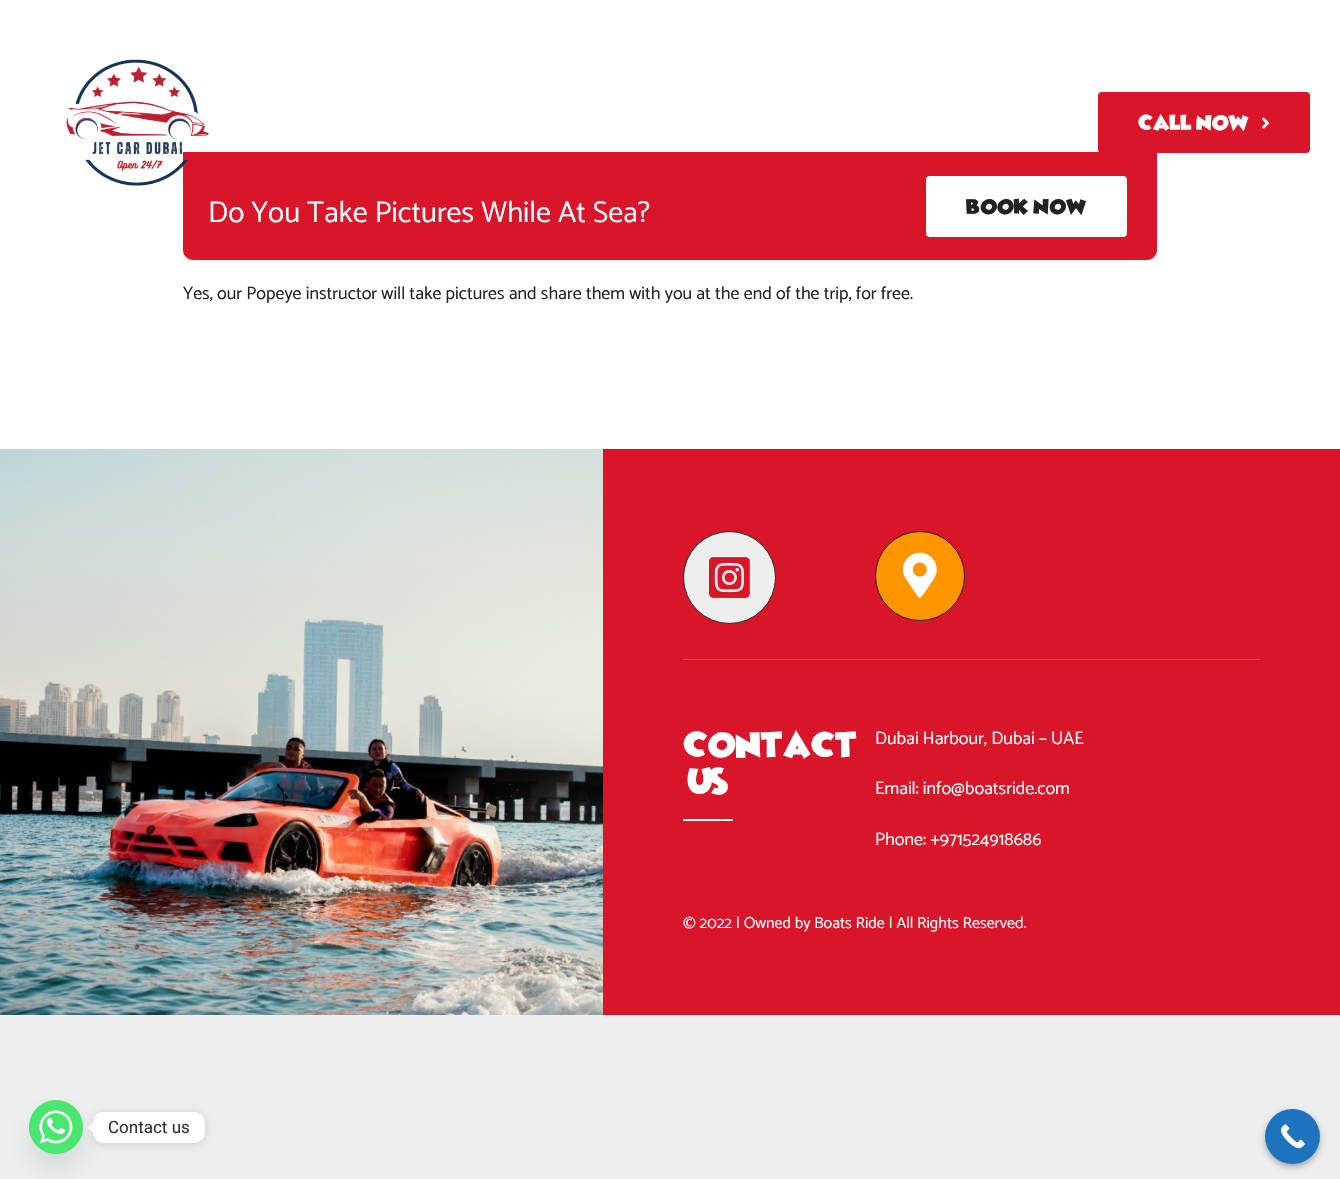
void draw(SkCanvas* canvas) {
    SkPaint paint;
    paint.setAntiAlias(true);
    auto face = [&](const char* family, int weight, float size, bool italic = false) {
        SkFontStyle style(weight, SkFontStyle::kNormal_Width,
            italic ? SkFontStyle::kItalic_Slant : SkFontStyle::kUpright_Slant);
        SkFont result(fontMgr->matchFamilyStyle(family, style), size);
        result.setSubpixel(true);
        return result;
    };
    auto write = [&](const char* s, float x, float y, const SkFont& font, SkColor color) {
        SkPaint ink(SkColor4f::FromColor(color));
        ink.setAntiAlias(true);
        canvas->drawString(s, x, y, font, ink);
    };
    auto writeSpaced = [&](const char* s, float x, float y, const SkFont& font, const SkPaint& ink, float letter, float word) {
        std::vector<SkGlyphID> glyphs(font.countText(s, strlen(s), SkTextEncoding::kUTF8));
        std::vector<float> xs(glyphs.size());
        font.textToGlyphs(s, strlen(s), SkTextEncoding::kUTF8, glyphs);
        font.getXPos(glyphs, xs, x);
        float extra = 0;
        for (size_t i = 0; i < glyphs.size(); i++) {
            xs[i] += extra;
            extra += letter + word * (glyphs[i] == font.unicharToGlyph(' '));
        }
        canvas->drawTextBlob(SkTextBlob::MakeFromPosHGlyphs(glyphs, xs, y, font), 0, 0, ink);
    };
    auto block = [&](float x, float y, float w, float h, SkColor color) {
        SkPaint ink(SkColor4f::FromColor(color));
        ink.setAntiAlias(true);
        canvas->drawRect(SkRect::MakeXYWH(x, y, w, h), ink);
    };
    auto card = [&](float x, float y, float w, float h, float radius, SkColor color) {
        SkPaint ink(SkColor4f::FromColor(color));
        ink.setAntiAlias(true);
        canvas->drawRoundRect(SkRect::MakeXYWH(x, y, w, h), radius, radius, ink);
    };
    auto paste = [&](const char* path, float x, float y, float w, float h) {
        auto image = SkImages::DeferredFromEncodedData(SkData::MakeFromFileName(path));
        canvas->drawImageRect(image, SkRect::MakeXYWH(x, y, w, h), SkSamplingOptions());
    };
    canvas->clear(SkColorSetRGB(238, 238, 238));
    block(0, 0, 1340, 449, SK_ColorWHITE);
    paint.setColor(SkColorSetRGB(219, 21, 41));
    canvas->drawPath(SkPathBuilder().moveTo(183, 152).lineTo(1157, 152).lineTo(1157, 250).cubicTo(1157, 255.5f, 1152.5f, 260, 1147, 260).lineTo(193, 260).cubicTo(187.5f, 260, 183, 255.5f, 183, 250).close().detach(), paint);
    paste("pic1.png", 66, 59, 143, 127);
    card(1098, 92, 212, 61, 4, SkColorSetRGB(219, 21, 41));
    auto kFont1 = face("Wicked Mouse", 400, 18);
    write("Call Now", 1138, 130, kFont1, SK_ColorWHITE);
    paste("pic2.png", 1261, 117, 9, 12);
    auto kFont2 = face("Catamaran", 400, 30);
    write("Do You Take Pictures While At Sea?", 208, 222, kFont2, SK_ColorWHITE);
    card(926, 176, 201, 61, 4, SK_ColorWHITE);
    paint.setColor(SkColorSetRGB(34, 34, 34));
    writeSpaced("Book Now", 966, 214, kFont1, paint, 0.25f, 0);
    auto kFont3 = face("Catamaran", 400, 18);
    write("Yes, our Popeye instructor will take pictures and share them with you at the end of the trip, for free.", 183, 299, kFont3, SkColorSetRGB(34, 34, 34));
    block(603, 449, 737, 566, SkColorSetRGB(219, 21, 41));
    paste("pic3.png", 0, 449, 603, 566);
    paint.setColor(SkColorSetRGB(238, 238, 238));
    canvas->drawCircle(729.5f, 577.5f, 46, paint);
    paint.setStyle(SkPaint::kStroke_Style);
    paint.setStrokeWidth(1);
    paint.setColor(SkColorSetRGB(34, 34, 34));
    canvas->drawCircle(729.5f, 577.5f, 46, paint);
    paste("pic4.png", 709, 557, 41, 41);
    paint.setStyle(SkPaint::kFill_Style);
    paint.setColor(SkColorSetRGB(255, 150, 0));
    canvas->drawCircle(920, 576, 44.5f, paint);
    paint.setStyle(SkPaint::kStroke_Style);
    paint.setColor(SkColorSetRGB(34, 34, 34));
    canvas->drawCircle(920, 576, 44.5f, paint);
    paste("pic5.png", 903, 552, 34, 46);
    block(683, 659, 577, 1, SkColorSetRGB(226, 68, 84));
    auto kFont4 = face("Wicked Mouse", 400, 30);
    write("Contact", 683, 757, kFont4, SK_ColorWHITE);
    write("Us", 683, 793, kFont4, SK_ColorWHITE);
    block(683, 819, 50, 2, SK_ColorWHITE);
    write("Dubai Harbour, Dubai – UAE", 875, 744, kFont3, SK_ColorWHITE);
    write("Email: info@boatsride.com", 875, 794, kFont3, SK_ColorWHITE);
    write("Phone: +971524918686", 875, 845, kFont3, SK_ColorWHITE);
    auto kFont5 = face("Catamaran", 400, 16);
    write("© 2022 | Owned by Boats Ride | All Rights Reserved.", 683, 928, kFont5, SK_ColorWHITE);
    paint.setStyle(SkPaint::kFill_Style);
    paint.setColor(SkColorSetARGB(41, 73, 104, 126));
    paint.setMaskFilter(SkMaskFilter::MakeBlur(kNormal_SkBlurStyle, 12));
    canvas->drawRoundRect(SkRect::MakeXYWH(29, 1116, 54, 54), 27, 27, paint);
    paint.setMaskFilter(nullptr);
    paste("pic6.png", 29, 1100, 54, 54);
    paint.setColor(SkColorSetARGB(38, 0, 0, 0));
    paint.setMaskFilter(SkMaskFilter::MakeBlur(kNormal_SkBlurStyle, 4));
    canvas->drawRoundRect(SkRect::MakeXYWH(93, 1113, 112, 31), 10, 10, paint);
    paint.setMaskFilter(nullptr);
    card(93, 1112, 112, 31, 10, SK_ColorWHITE);
    paint.setColor(SK_ColorWHITE);
    canvas->drawPath(SkPathBuilder().moveTo(93, 1122.5f).lineTo(93, 1132.5f).lineTo(88, 1127.5f).close().detach(), paint);
    auto kFont6 = face("Roboto", 400, 17);
    write("Contact us", 108, 1133, kFont6, SkColorSetRGB(51, 51, 51));
    paint.setColor(SkColorSetARGB(77, 0, 0, 0));
    paint.setMaskFilter(SkMaskFilter::MakeBlur(kNormal_SkBlurStyle, 3));
    canvas->drawRoundRect(SkRect::MakeXYWH(1265, 1112, 55, 55), 27.5f, 27.5f, paint);
    paint.setMaskFilter(nullptr);
    paint.setColor(SkColorSetRGB(30, 115, 190));
    canvas->drawCircle(1292.5f, 1136.5f, 27.5f, paint);
    paste("pic7.png", 1280, 1124, 25, 25);
}
